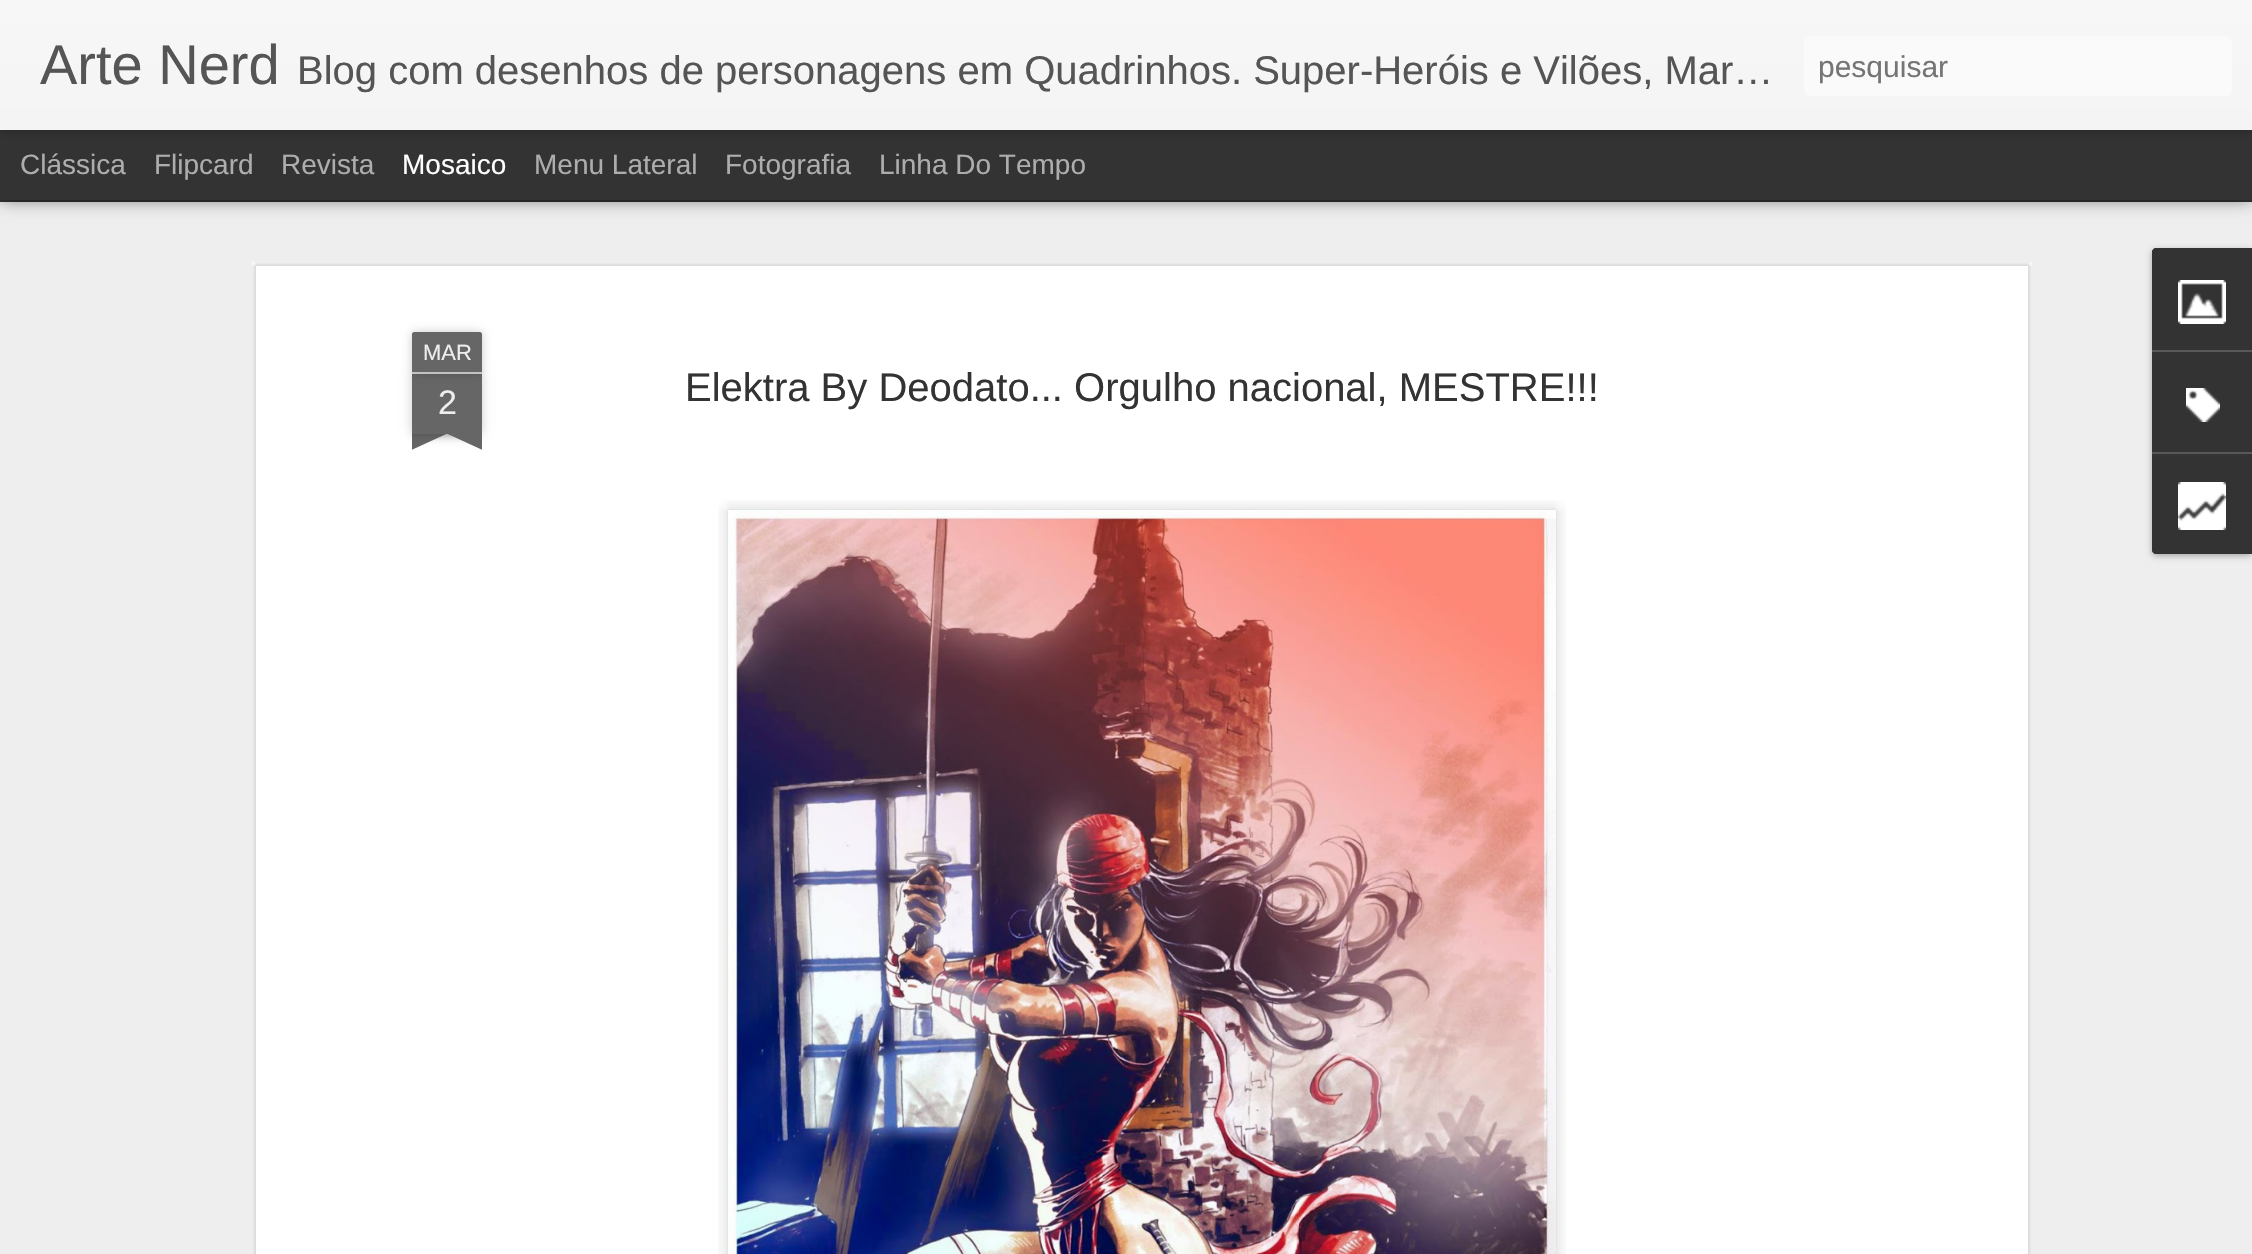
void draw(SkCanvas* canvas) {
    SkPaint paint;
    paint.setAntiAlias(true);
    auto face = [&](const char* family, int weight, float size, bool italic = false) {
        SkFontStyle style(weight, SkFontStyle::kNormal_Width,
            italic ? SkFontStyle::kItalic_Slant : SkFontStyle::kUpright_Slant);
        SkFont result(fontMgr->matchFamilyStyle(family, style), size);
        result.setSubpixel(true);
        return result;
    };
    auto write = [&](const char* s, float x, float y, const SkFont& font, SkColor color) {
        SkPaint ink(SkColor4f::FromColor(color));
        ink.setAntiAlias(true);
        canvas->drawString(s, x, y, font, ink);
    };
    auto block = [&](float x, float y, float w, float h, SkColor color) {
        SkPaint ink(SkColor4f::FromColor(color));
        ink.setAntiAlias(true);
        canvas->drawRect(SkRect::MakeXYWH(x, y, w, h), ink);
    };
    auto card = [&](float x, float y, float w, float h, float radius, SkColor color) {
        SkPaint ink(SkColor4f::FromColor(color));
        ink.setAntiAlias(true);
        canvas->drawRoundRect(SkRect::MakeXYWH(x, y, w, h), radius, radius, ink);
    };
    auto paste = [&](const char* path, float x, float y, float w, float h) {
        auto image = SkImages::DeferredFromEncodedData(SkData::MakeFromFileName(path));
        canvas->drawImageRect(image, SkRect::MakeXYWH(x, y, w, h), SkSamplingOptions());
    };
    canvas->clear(SkColorSetRGB(51, 51, 51));
    block(0, 202, 2252, 1052, SkColorSetRGB(238, 238, 238));
    paint.setColor(SkColorSetARGB(128, 0, 0, 0));
    paint.setMaskFilter(SkMaskFilter::MakeBlur(kNormal_SkBlurStyle, 8));
    canvas->drawRect(SkRect::MakeXYWH(0, 130, 2252, 70), paint);
    paint.setMaskFilter(nullptr);
    block(0, 130, 2252, 70, SkColorSetRGB(51, 51, 51));
    paint.setColor(SkColorSetARGB(77, 0, 0, 0));
    paint.setMaskFilter(SkMaskFilter::MakeBlur(kNormal_SkBlurStyle, 5));
    canvas->drawRect(SkRect::MakeXYWH(0, 0, 2252, 130), paint);
    paint.setMaskFilter(nullptr);
    {
        const SkColor colors[] = {SkColorSetRGB(247, 247, 247), SkColorSetRGB(244, 244, 244)};
        const float stops[] = {0, 1};
        const SkPoint ends[] = {{0, 0}, {0, 130}};
        paint.setShader(SkGradientShader::MakeLinear(ends, colors, stops, 2, SkTileMode::kClamp));
        paint.setAlpha(255);
    }
    canvas->drawRect(SkRect::MakeXYWH(0, 0, 2252, 130), paint);
    auto kFont1 = face("Liberation Sans", 400, 56);
    write("Arte Nerd", 40, 84, kFont1, SkColorSetRGB(85, 85, 85));
    auto kFont2 = face("Liberation Sans", 400, 40);
    write("Blog com desenhos de personagens em Quadrinhos. Super-Heróis e Vilões, Mar…", 297, 84, kFont2, SkColorSetRGB(85, 85, 85));
    card(1804, 36, 428, 60, 6, SkColorSetRGB(250, 250, 250));
    auto kFont3 = face("Liberation Sans", 400, 30);
    write("pesquisar", 1818, 77, kFont3, SkColorSetRGB(117, 117, 117));
    auto kFont4 = face("Liberation Sans", 400, 28);
    write("Clássica", 20, 174, kFont4, SkColorSetRGB(173, 173, 173));
    write("Flipcard", 154, 174, kFont4, SkColorSetRGB(173, 173, 173));
    write("Revista", 281, 174, kFont4, SkColorSetRGB(173, 173, 173));
    write("Mosaico", 402, 174, kFont4, SK_ColorWHITE);
    write("Menu Lateral", 534, 174, kFont4, SkColorSetRGB(173, 173, 173));
    write("Fotografia", 725, 174, kFont4, SkColorSetRGB(173, 173, 173));
    write("Linha Do Tempo", 879, 174, kFont4, SkColorSetRGB(173, 173, 173));
    block(252, 262, 1780, 992, SK_ColorWHITE);
    paste("pic1.png", 252, 262, 1780, 992);
    paint.setShader(nullptr);
    paint.setColor(SkColorSetARGB(51, 0, 0, 0));
    paint.setMaskFilter(SkMaskFilter::MakeBlur(kNormal_SkBlurStyle, 5));
    canvas->drawRect(SkRect::MakeXYWH(412, 374, 70, 60), paint);
    paint.setMaskFilter(nullptr);
    block(412, 374, 70, 60, SkColorSetRGB(102, 102, 102));
    paint.setMaskFilter(SkMaskFilter::MakeBlur(kNormal_SkBlurStyle, 5));
    canvas->drawRoundRect(SkRect::MakeXYWH(412, 332, 70, 42), 2, 2, paint);
    paint.setMaskFilter(nullptr);
    paint.setColor(SkColorSetRGB(102, 102, 102));
    canvas->drawPath(SkPathBuilder().moveTo(414, 332).lineTo(480, 332).cubicTo(481, 332, 482, 333, 482, 334).lineTo(482, 374).lineTo(412, 374).lineTo(412, 334).cubicTo(412, 333, 413, 332, 414, 332).close().detach(), paint);
    block(412, 372, 70, 2, SkColorSetRGB(194, 194, 194));
    auto kFont5 = face("Liberation Sans", 400, 22);
    write("MAR", 423, 360, kFont5, SkColorSetRGB(238, 238, 238));
    auto kFont6 = face("Liberation Sans", 400, 34);
    write("2", 438, 414, kFont6, SkColorSetRGB(238, 238, 238));
    canvas->save();
    canvas->clipRect(SkRect::MakeXYWH(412, 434, 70, 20));
    paint.setColor(SkColorSetARGB(51, 0, 0, 0));
    paint.setMaskFilter(SkMaskFilter::MakeBlur(kNormal_SkBlurStyle, 5));
    canvas->drawRect(SkRect::MakeXYWH(394, 414, 100, 20), paint);
    paint.setMaskFilter(nullptr);
    canvas->restore();
    canvas->save();
    canvas->clipRect(SkRect::MakeXYWH(412, 434, 70, 20));
    paint.setColor(SkColorSetRGB(102, 102, 102));
    canvas->drawPath(SkPathBuilder().moveTo(394, 436).lineTo(485, 394).lineTo(494, 412).lineTo(403, 454).close().detach(), paint);
    canvas->restore();
    canvas->save();
    canvas->clipRect(SkRect::MakeXYWH(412, 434, 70, 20));
    paint.setColor(SkColorSetARGB(51, 0, 0, 0));
    paint.setMaskFilter(SkMaskFilter::MakeBlur(kNormal_SkBlurStyle, 5));
    canvas->drawRect(SkRect::MakeXYWH(400, 414, 100, 20), paint);
    paint.setMaskFilter(nullptr);
    canvas->restore();
    canvas->save();
    canvas->clipRect(SkRect::MakeXYWH(412, 434, 70, 20));
    paint.setColor(SkColorSetRGB(102, 102, 102));
    canvas->drawPath(SkPathBuilder().moveTo(409, 394).lineTo(500, 436).lineTo(491, 454).lineTo(400, 412).close().detach(), paint);
    canvas->restore();
    write("Elektra By Deodato... Orgulho nacional, MESTRE!!!", 685, 401, kFont2, SkColorSetRGB(51, 51, 51));
    paste("pic2.png", 718, 500, 848, 754);
    paste("pic3.png", 736, 518, 811, 736);
    paint.setColor(SkColorSetARGB(77, 0, 0, 0));
    paint.setMaskFilter(SkMaskFilter::MakeBlur(kNormal_SkBlurStyle, 3));
    canvas->drawRoundRect(SkRect::MakeXYWH(2152, 250, 100, 306), 4, 4, paint);
    paint.setMaskFilter(nullptr);
    paint.setColor(SkColorSetRGB(51, 51, 51));
    canvas->drawPath(SkPathBuilder().moveTo(2156, 248).lineTo(2252, 248).lineTo(2252, 554).lineTo(2156, 554).cubicTo(2154, 554, 2152, 552, 2152, 550).lineTo(2152, 252).cubicTo(2152, 250, 2154, 248, 2156, 248).close().detach(), paint);
    canvas->drawPath(SkPathBuilder().moveTo(2156, 248).lineTo(2252, 248).lineTo(2252, 350).lineTo(2152, 350).lineTo(2152, 252).cubicTo(2152, 250, 2154, 248, 2156, 248).close().detach(), paint);
    paste("pic4.png", 2178, 280, 48, 44);
    block(2152, 350, 100, 2, SkColorSetRGB(88, 88, 88));
    paste("pic5.png", 2186, 388, 34, 34);
    canvas->drawPath(SkPathBuilder().moveTo(2152, 452).lineTo(2252, 452).lineTo(2252, 554).lineTo(2156, 554).cubicTo(2154, 554, 2152, 552, 2152, 550).close().detach(), paint);
    block(2152, 452, 100, 2, SkColorSetRGB(88, 88, 88));
    paste("pic6.png", 2178, 482, 48, 48);
}
